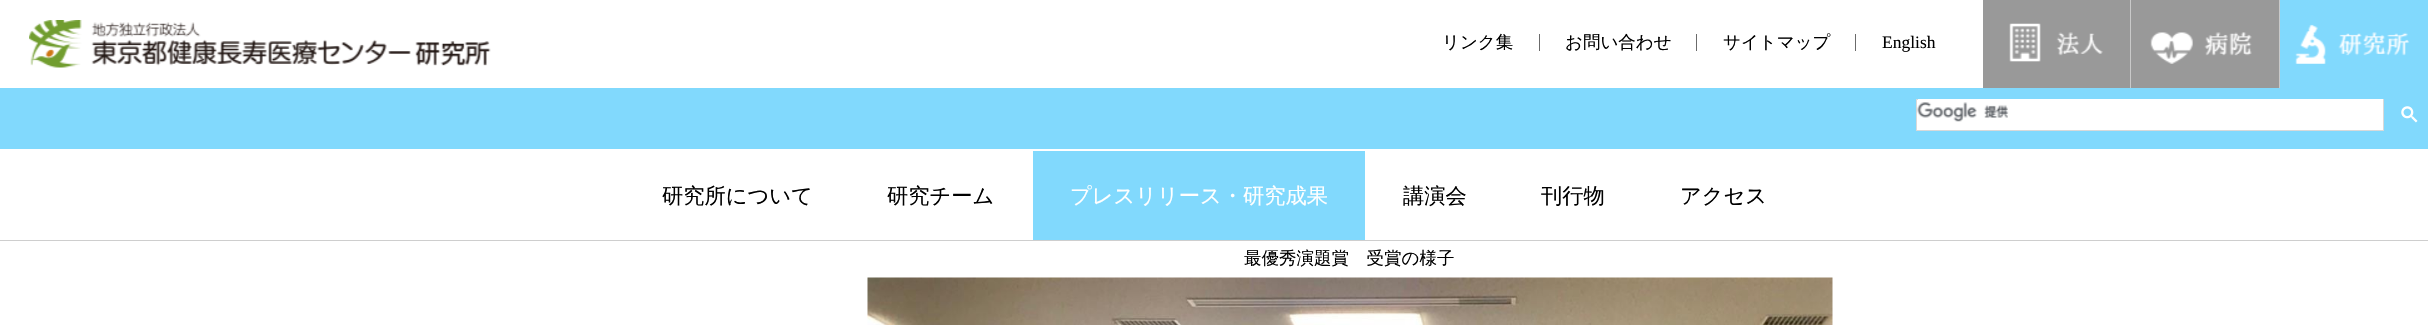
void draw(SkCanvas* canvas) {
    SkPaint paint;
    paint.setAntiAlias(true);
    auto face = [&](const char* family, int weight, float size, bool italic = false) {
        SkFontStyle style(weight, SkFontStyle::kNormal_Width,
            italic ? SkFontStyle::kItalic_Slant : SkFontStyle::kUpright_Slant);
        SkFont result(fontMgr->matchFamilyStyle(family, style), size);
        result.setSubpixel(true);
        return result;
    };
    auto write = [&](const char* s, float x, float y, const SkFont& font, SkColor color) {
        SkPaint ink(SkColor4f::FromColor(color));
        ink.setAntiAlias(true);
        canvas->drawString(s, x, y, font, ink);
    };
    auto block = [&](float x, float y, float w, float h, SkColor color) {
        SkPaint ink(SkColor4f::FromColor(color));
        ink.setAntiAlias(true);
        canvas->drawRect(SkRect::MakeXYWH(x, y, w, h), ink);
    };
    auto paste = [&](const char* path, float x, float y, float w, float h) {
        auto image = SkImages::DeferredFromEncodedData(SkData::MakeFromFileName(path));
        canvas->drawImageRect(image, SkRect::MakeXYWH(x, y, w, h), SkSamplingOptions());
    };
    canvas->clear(SK_ColorWHITE);
    paste("pic1.png", 29, 20, 462, 48);
    auto kFont1 = face("WenQuanYi Zen Hei", 500, 17.5f);
    write("リンク集", 1442, 48, kFont1, SK_ColorBLACK);
    block(1539, 34, 1, 17, SkColorSetRGB(107, 107, 107));
    write("お問い合わせ", 1565, 48, kFont1, SK_ColorBLACK);
    block(1696, 34, 1, 17, SkColorSetRGB(107, 107, 107));
    write("サイトマップ", 1723, 48, kFont1, SK_ColorBLACK);
    block(1855, 34, 1, 17, SkColorSetRGB(107, 107, 107));
    auto kFont2 = face("Liberation Serif", 400, 17.5f);
    write("English", 1882, 48, kFont2, SK_ColorBLACK);
    block(1983, 0, 147, 88, SkColorSetRGB(153, 153, 153));
    block(2130, 0, 1, 88, SkColorSetRGB(201, 201, 201));
    paste("pic2.png", 2009, 23, 94, 39);
    block(2131, 0, 148, 88, SkColorSetRGB(153, 153, 153));
    block(2279, 0, 1, 88, SkColorSetRGB(201, 201, 201));
    paste("pic3.png", 2150, 32, 102, 32);
    block(2280, 0, 148, 88, SkColorSetRGB(129, 217, 253));
    paste("pic4.png", 2295, 24, 115, 40);
    block(0, 88, 2428, 61, SkColorSetRGB(129, 217, 253));
    paint.setColor(SK_ColorWHITE);
    canvas->drawRect(SkRect::MakeXYWH(1916.5f, 99.5f, 467, 31), paint);
    paint.setStyle(SkPaint::kStroke_Style);
    paint.setStrokeWidth(1);
    paint.setColor(SkColorSetRGB(217, 217, 217));
    canvas->drawRect(SkRect::MakeXYWH(1916.5f, 99.5f, 467, 31), paint);
    block(1918, 99, 465, 1, SK_ColorWHITE);
    paste("pic5.png", 1916, 102, 93, 20);
    paste("pic6.png", 2401, 106, 17, 17);
    block(0, 240, 2428, 1, SkColorSetRGB(206, 206, 206));
    auto kFont3 = face("WenQuanYi Zen Hei", 500, 21.25f);
    write("研究所について", 662, 203, kFont3, SK_ColorBLACK);
    write("研究チーム", 887, 203, kFont3, SK_ColorBLACK);
    block(1033, 151, 332, 89, SkColorSetRGB(129, 217, 253));
    write("プレスリリース・研究成果", 1070, 203, kFont3, SK_ColorWHITE);
    write("講演会", 1403, 203, kFont3, SK_ColorBLACK);
    write("刊行物", 1541, 203, kFont3, SK_ColorBLACK);
    write("アクセス", 1680, 203, kFont3, SK_ColorBLACK);
    write("最優秀演題賞　受賞の様子", 1244, 264, kFont1, SK_ColorBLACK);
    paste("pic7.png", 867, 277, 966, 48);
}
